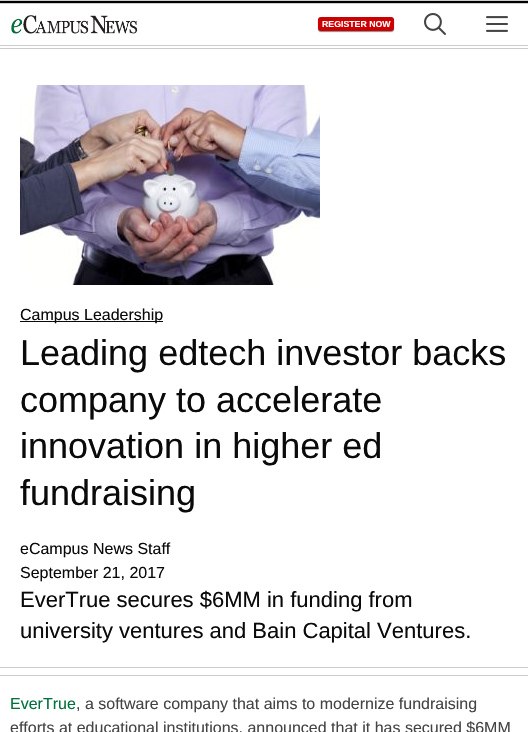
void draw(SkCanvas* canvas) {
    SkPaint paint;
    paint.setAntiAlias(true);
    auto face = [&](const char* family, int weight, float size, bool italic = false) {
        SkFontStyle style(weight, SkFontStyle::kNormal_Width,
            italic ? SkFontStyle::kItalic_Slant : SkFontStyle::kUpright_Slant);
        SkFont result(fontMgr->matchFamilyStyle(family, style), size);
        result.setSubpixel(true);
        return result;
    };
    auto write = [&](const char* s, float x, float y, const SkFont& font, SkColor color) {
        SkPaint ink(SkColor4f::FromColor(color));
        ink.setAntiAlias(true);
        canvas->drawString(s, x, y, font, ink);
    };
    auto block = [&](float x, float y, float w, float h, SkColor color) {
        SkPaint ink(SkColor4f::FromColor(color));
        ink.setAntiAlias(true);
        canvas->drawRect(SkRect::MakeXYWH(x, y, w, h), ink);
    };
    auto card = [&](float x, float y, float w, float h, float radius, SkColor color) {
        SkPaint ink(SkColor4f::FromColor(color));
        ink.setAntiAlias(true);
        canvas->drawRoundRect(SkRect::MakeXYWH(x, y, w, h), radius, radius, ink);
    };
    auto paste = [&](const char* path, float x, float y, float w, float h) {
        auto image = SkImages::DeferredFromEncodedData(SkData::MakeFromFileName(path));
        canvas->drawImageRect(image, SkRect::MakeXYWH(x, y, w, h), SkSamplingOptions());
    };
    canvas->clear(SK_ColorWHITE);
    block(0, 1, 528, 2, SK_ColorBLACK);
    block(0, 0, 528, 1, SkColorSetRGB(204, 204, 204));
    block(0, 3, 528, 1, SkColorSetRGB(204, 204, 204));
    block(0, 45, 528, 1, SkColorSetRGB(204, 204, 204));
    block(0, 48, 528, 1, SkColorSetRGB(204, 204, 204));
    paste("pic1.png", 11, 15, 127, 19);
    paint.setColor(SkColorSetRGB(136, 136, 136));
    paint.setMaskFilter(SkMaskFilter::MakeBlur(kNormal_SkBlurStyle, 0.5f));
    canvas->drawRoundRect(SkRect::MakeXYWH(318, 18, 76, 14), 3, 3, paint);
    paint.setMaskFilter(nullptr);
    card(318, 17, 76, 14, 3, SkColorSetRGB(204, 0, 0));
    auto kFont1 = face("Liberation Sans", 700, 8.75f);
    write("REGISTER NOW", 322, 27, kFont1, SK_ColorWHITE);
    paste("pic2.png", 424, 13, 22, 22);
    paste("pic3.png", 486, 16, 22, 16);
    paste("pic4.png", 20, 85, 300, 200);
    block(20, 321, 143, 1, SkColorSetRGB(10, 10, 10));
    auto kFont2 = face("Liberation Sans", 400, 16);
    write("Campus Leadership", 20, 320, kFont2, SkColorSetRGB(10, 10, 10));
    auto kFont3 = face("Liberation Sans", 400, 36);
    write("Leading edtech investor backs", 20, 365, kFont3, SkColorSetRGB(10, 10, 10));
    write("company to accelerate", 20, 412, kFont3, SkColorSetRGB(10, 10, 10));
    write("innovation in higher ed", 20, 458, kFont3, SkColorSetRGB(10, 10, 10));
    write("fundraising", 20, 505, kFont3, SkColorSetRGB(10, 10, 10));
    write("eCampus News Staff", 20, 554, kFont2, SkColorSetRGB(10, 10, 10));
    write("September 21, 2017", 20, 578, kFont2, SkColorSetRGB(10, 10, 10));
    auto kFont4 = face("Liberation Sans", 400, 22);
    write("EverTrue secures $6MM in funding from", 20, 607, kFont4, SkColorSetRGB(10, 10, 10));
    write("university ventures and Bain Capital Ventures.", 20, 638, kFont4, SkColorSetRGB(10, 10, 10));
    block(0, 667, 528, 1, SkColorSetRGB(204, 204, 204));
    block(0, 675, 528, 1, SkColorSetRGB(204, 204, 204));
    write("EverTrue", 10, 709, kFont2, SkColorSetRGB(0, 112, 60));
    write(", a software company that aims to modernize fundraising", 76, 709, kFont2, SkColorSetRGB(68, 68, 68));
    write("efforts at educational institutions, announced that it has secured $6MM", 10, 733, kFont2, SkColorSetRGB(68, 68, 68));
}
